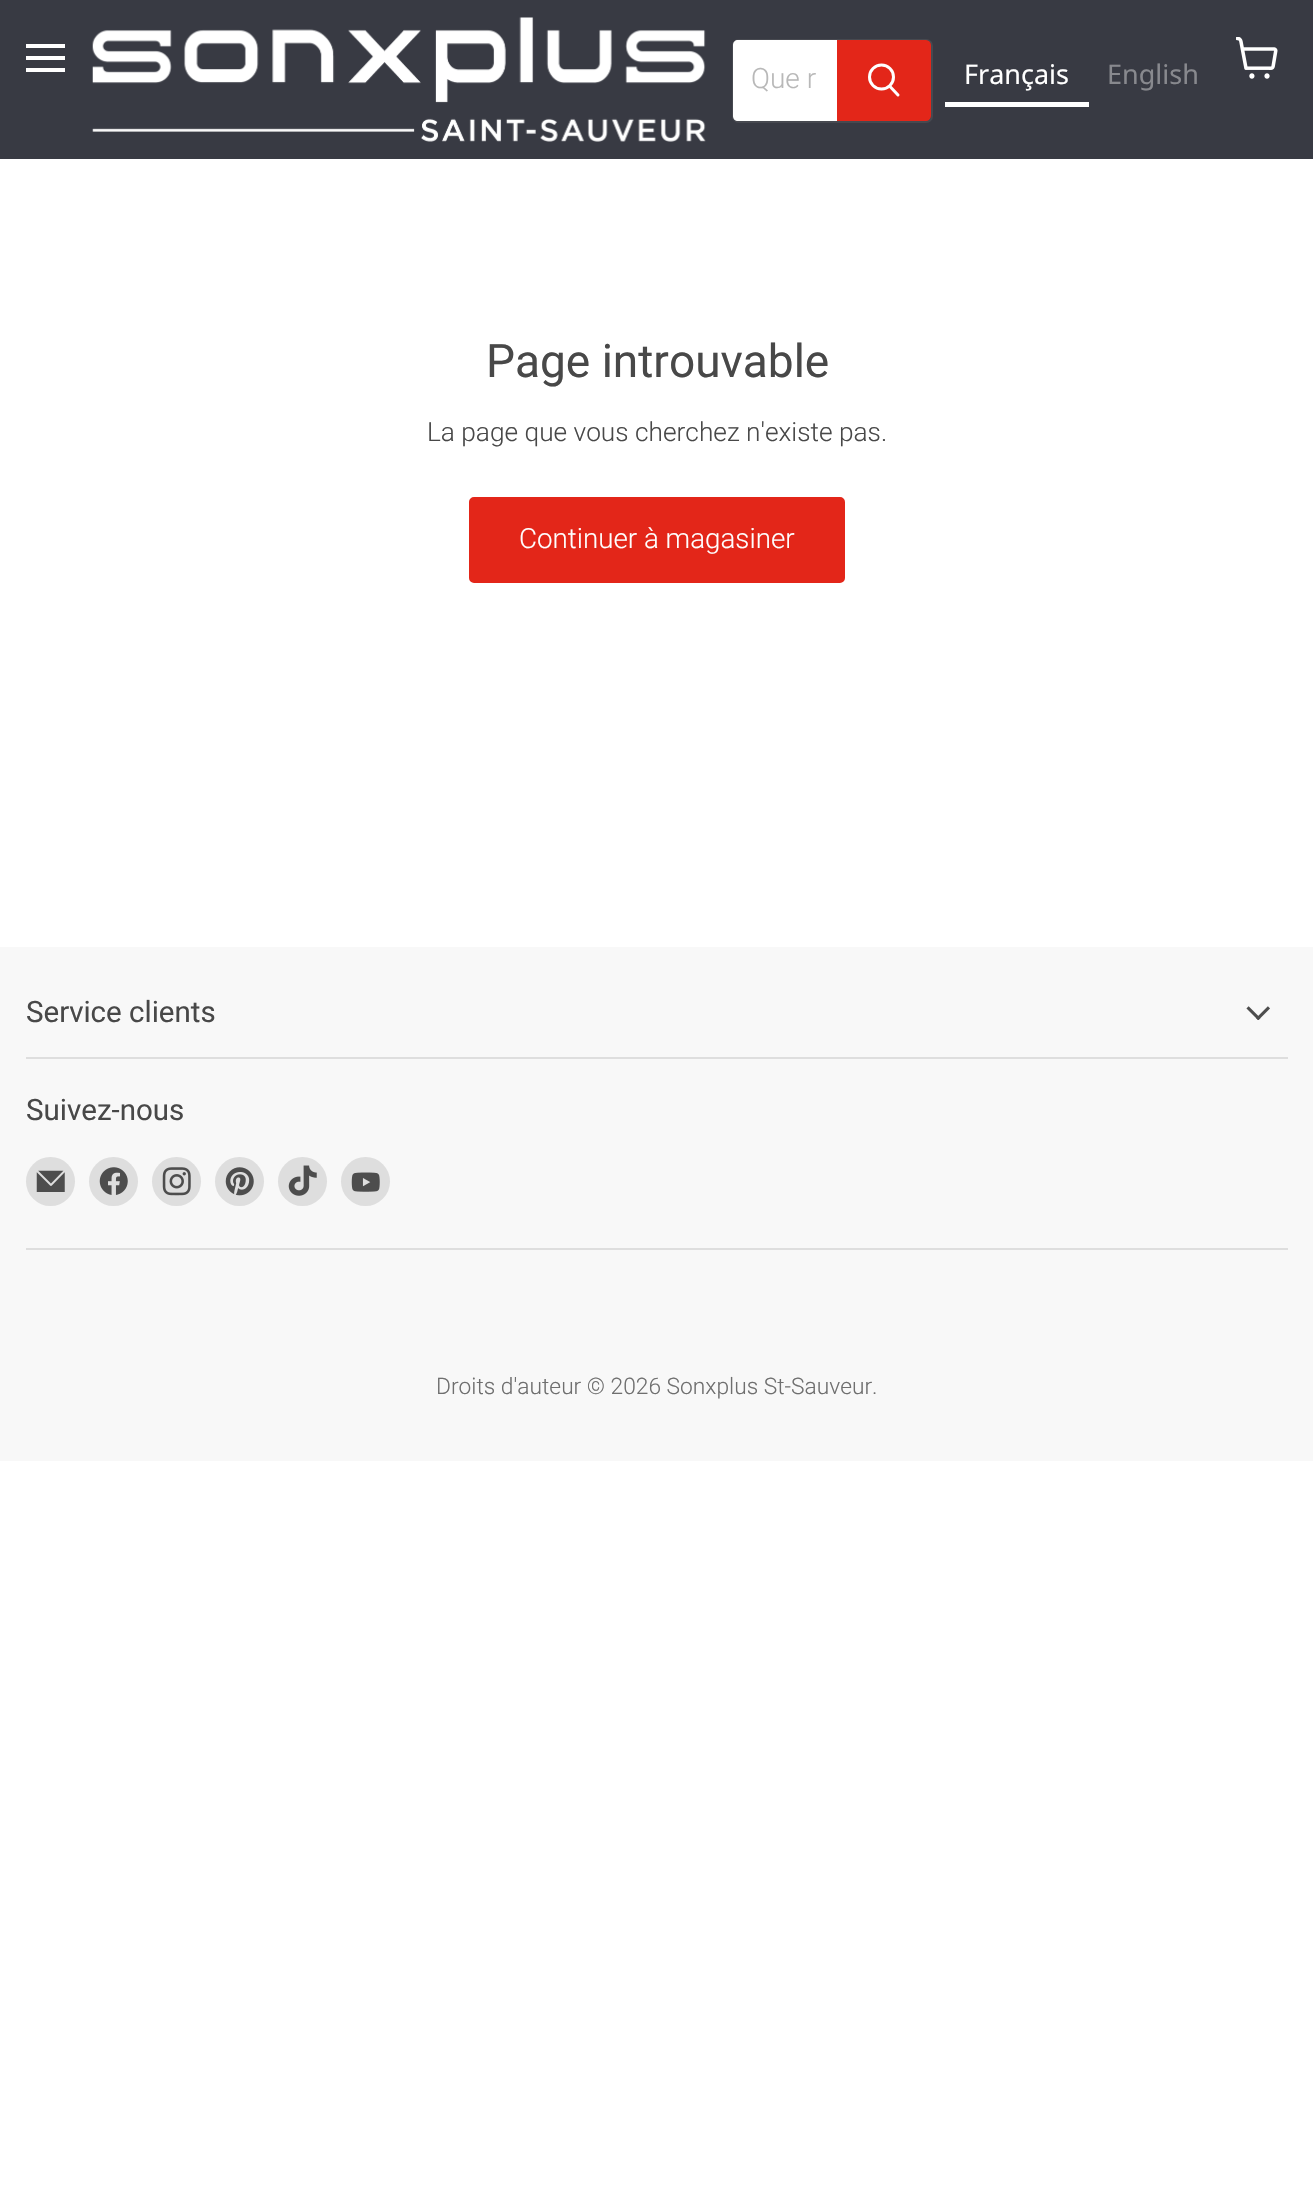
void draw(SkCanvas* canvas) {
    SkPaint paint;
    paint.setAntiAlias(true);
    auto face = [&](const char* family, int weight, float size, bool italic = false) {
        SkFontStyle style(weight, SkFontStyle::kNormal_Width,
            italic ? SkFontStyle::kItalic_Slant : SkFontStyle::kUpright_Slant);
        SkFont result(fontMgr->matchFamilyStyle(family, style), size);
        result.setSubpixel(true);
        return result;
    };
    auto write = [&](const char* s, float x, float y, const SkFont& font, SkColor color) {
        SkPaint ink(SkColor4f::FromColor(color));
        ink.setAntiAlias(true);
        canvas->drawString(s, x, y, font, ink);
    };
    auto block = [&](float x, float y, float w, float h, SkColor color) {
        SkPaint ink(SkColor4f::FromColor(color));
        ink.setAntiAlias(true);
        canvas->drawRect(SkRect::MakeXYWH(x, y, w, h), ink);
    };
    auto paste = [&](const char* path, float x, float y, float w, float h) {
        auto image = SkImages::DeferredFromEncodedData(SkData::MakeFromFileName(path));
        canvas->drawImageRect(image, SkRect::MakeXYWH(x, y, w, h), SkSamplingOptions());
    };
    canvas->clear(SK_ColorWHITE);
    block(0, 0, 1313, 159, SkColorSetRGB(56, 58, 67));
    block(26, 44, 39, 4, SK_ColorWHITE);
    block(26, 56, 39, 4, SK_ColorWHITE);
    block(26, 68, 39, 4, SK_ColorWHITE);
    paste("pic1.png", 1236, 37, 42, 42);
    paste("pic2.png", 92, 17, 614, 125);
    paint.setStyle(SkPaint::kStroke_Style);
    paint.setStrokeWidth(2);
    paint.setColor(SkColorSetARGB(51, 128, 128, 128));
    canvas->drawRoundRect(SkRect::MakeXYWH(733, 40, 199, 82), 6, 6, paint);
    paint.setStyle(SkPaint::kFill_Style);
    paint.setColor(SK_ColorWHITE);
    canvas->drawPath(SkPathBuilder().moveTo(738, 40).lineTo(837, 40).lineTo(837, 121).lineTo(738, 121).cubicTo(735, 121, 733, 119, 733, 116).lineTo(733, 45).cubicTo(733, 42, 735, 40, 738, 40).close().detach(), paint);
    auto kFont1 = face("Roboto", 300, 28);
    write("Que r", 751, 88, kFont1, SkColorSetRGB(184, 184, 184));
    paint.setColor(SkColorSetRGB(227, 38, 25));
    canvas->drawPath(SkPathBuilder().moveTo(838, 41).lineTo(926, 41).cubicTo(928, 41, 930, 43, 930, 45).lineTo(930, 116).cubicTo(930, 118, 928, 120, 926, 120).lineTo(838, 120).close().detach(), paint);
    paint.setStyle(SkPaint::kStroke_Style);
    canvas->drawPath(SkPathBuilder().moveTo(838, 41).lineTo(926, 41).cubicTo(928, 41, 930, 43, 930, 45).lineTo(930, 116).cubicTo(930, 118, 928, 120, 926, 120).lineTo(838, 120).close().detach(), paint);
    paint.setStrokeWidth(3);
    paint.setStrokeCap(SkPaint::kRound_Cap);
    paint.setColor(SK_ColorWHITE);
    canvas->drawPath(SkPathBuilder().moveTo(898, 95).lineTo(890, 86.5f).detach(), paint);
    paint.setStrokeCap(SkPaint::kButt_Cap);
    canvas->drawCircle(881.5f, 77, 12, paint);
    auto kFont2 = face("Noto Sans", 400, 27);
    write("Français", 964, 84, kFont2, SK_ColorWHITE);
    block(945, 102, 144, 5, SK_ColorWHITE);
    write("English", 1107, 84, kFont2, SkColorSetRGB(136, 137, 142));
    auto kFont3 = face("Roboto", 400, 46);
    write("Page introuvable", 486, 377, kFont3, SkColorSetRGB(72, 72, 72));
    auto kFont4 = face("Roboto", 300, 26.25f);
    write("La page que vous cherchez n'existe pas.", 427, 441, kFont4, SkColorSetRGB(72, 72, 72));
    paint.setStyle(SkPaint::kFill_Style);
    paint.setColor(SkColorSetRGB(227, 38, 25));
    canvas->drawRoundRect(SkRect::MakeXYWH(470, 498, 374, 84), 4, 4, paint);
    paint.setStyle(SkPaint::kStroke_Style);
    paint.setStrokeWidth(2);
    canvas->drawRoundRect(SkRect::MakeXYWH(470, 498, 374, 84), 4, 4, paint);
    auto kFont5 = face("Roboto", 300, 27.75f);
    write("Continuer à magasiner", 519, 548, kFont5, SK_ColorWHITE);
    block(0, 947, 1313, 514, SkColorSetRGB(248, 248, 248));
    block(26, 1057, 1262, 2, SkColorSetRGB(222, 222, 222));
    auto kFont6 = face("Roboto", 400, 29.5f);
    write("Service clients", 26, 1022, kFont6, SkColorSetRGB(72, 72, 72));
    paste("pic3.png", 1246, 1006, 24, 14);
    block(26, 1248, 1262, 2, SkColorSetRGB(222, 222, 222));
    write("Suivez-nous", 26, 1120, kFont6, SkColorSetRGB(72, 72, 72));
    paint.setStyle(SkPaint::kFill_Style);
    paint.setColor(SkColorSetRGB(222, 222, 222));
    canvas->drawCircle(50.5f, 1181.5f, 24.5f, paint);
    paste("pic4.png", 36, 1170, 29, 22);
    canvas->drawCircle(113.5f, 1181.5f, 24.5f, paint);
    paste("pic5.png", 99, 1167, 29, 28);
    canvas->drawCircle(176.5f, 1181.5f, 24.5f, paint);
    paste("pic6.png", 162, 1167, 29, 29);
    canvas->drawCircle(239.5f, 1181.5f, 24.5f, paint);
    paste("pic7.png", 225, 1167, 29, 29);
    canvas->drawCircle(302.5f, 1181.5f, 24.5f, paint);
    paste("pic8.png", 288, 1165, 29, 31);
    canvas->drawCircle(365.5f, 1181.5f, 24.5f, paint);
    paste("pic9.png", 351, 1172, 29, 20);
    auto kFont7 = face("Roboto", 300, 22.75f);
    write("Droits d'auteur © 2026 Sonxplus St-Sauveur.", 436, 1394, kFont7, SkColorSetRGB(111, 111, 111));
}
